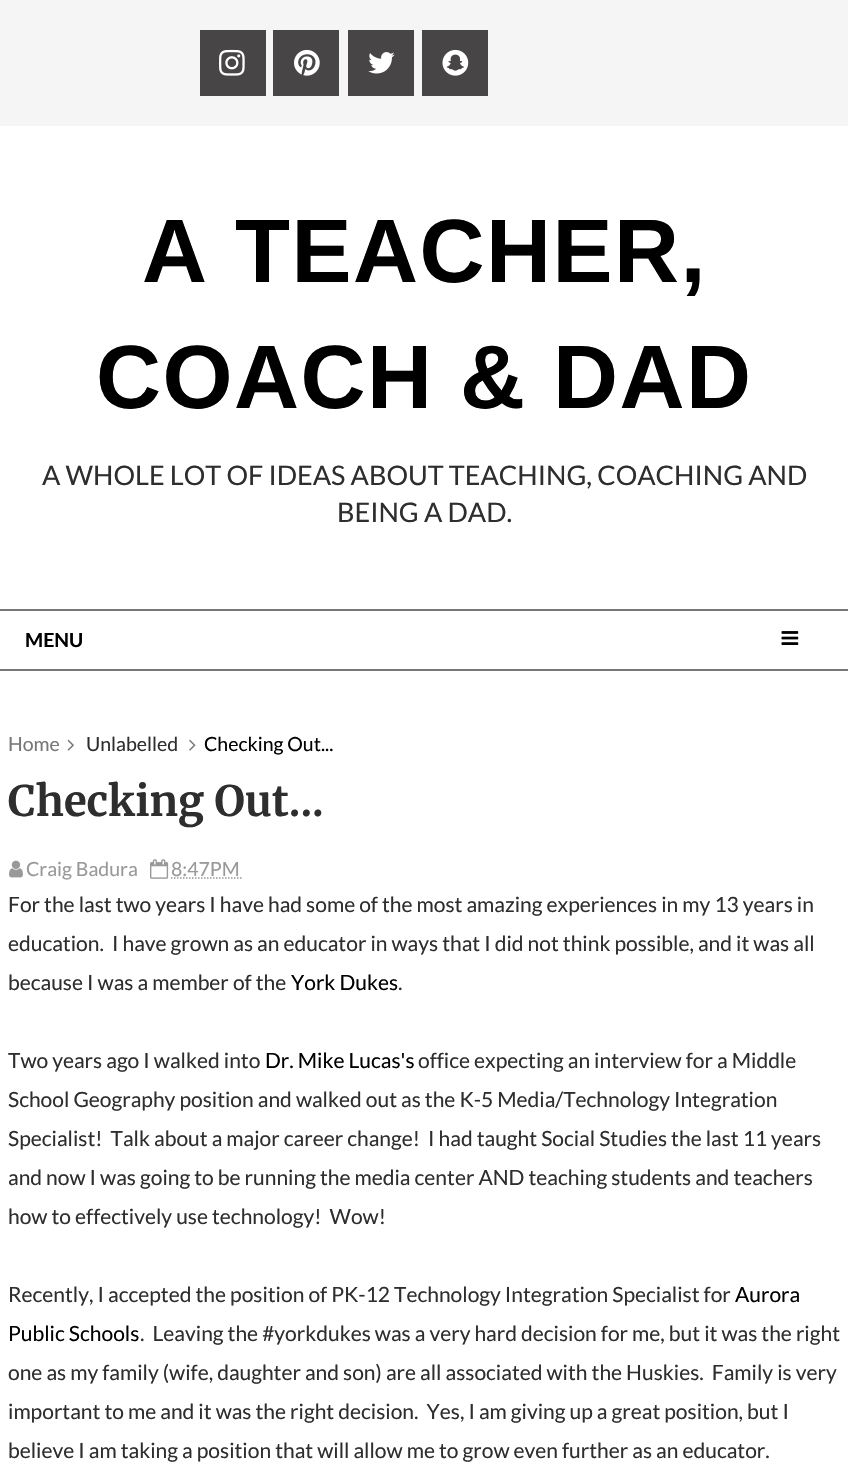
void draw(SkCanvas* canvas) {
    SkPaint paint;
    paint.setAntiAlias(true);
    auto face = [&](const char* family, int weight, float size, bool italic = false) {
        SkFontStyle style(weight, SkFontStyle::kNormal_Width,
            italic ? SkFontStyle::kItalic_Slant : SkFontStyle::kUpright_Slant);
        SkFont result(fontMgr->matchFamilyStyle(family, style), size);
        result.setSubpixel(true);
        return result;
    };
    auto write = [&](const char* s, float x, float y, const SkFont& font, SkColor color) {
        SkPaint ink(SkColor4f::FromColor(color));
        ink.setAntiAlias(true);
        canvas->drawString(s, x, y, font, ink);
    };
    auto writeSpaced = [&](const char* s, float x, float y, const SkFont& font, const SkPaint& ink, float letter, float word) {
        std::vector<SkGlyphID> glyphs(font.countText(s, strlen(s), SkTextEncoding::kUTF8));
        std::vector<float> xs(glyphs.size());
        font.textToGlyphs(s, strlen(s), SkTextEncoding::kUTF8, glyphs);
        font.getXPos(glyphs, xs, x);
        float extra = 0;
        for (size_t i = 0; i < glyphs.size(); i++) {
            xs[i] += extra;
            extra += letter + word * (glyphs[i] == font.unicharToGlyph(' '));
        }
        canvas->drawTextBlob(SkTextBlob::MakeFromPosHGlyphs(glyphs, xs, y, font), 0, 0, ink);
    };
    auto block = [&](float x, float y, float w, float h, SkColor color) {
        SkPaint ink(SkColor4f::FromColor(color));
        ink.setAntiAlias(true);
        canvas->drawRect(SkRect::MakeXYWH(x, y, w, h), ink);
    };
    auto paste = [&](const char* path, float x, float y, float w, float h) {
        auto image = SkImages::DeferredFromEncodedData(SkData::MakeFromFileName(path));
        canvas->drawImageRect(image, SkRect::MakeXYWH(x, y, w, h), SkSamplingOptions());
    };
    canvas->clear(SK_ColorWHITE);
    block(0, 0, 848, 126, SkColorSetRGB(245, 245, 245));
    block(200, 30, 66, 66, SkColorSetRGB(71, 69, 69));
    paste("pic1.png", 219, 49, 26, 27);
    block(273, 30, 66, 66, SkColorSetRGB(71, 69, 69));
    paste("pic2.png", 294, 49, 26, 27);
    block(348, 30, 66, 66, SkColorSetRGB(71, 69, 69));
    paste("pic3.png", 368, 52, 27, 22);
    block(422, 30, 66, 66, SkColorSetRGB(71, 69, 69));
    paste("pic4.png", 442, 49, 27, 27);
    auto kFont1 = face("Liberation Sans", 700, 90);
    paint.setColor(SK_ColorBLACK);
    writeSpaced("A TEACHER,", 142, 282, kFont1, paint, 1.5f, 0);
    writeSpaced("COACH & DAD", 96, 408, kFont1, paint, 1.5f, 0);
    auto kFont2 = face("Lato", 400, 27);
    write("A WHOLE LOT OF IDEAS ABOUT TEACHING, COACHING AND", 42, 485, kFont2, SkColorSetRGB(46, 46, 46));
    write("BEING A DAD.", 337, 522, kFont2, SkColorSetRGB(46, 46, 46));
    block(0, 609, 848, 2, SkColorSetRGB(119, 119, 119));
    block(0, 669, 848, 2, SkColorSetRGB(119, 119, 119));
    auto kFont3 = face("Lato", 700, 19.5f);
    write("MENU", 25, 647, kFont3, SK_ColorBLACK);
    paste("pic5.png", 781, 631, 18, 14);
    auto kFont4 = face("Lato", 400, 19.5f);
    write("Home", 8, 751, kFont4, SkColorSetRGB(119, 119, 119));
    paste("pic6.png", 67, 739, 7, 12);
    write("Unlabelled", 86, 751, kFont4, SkColorSetRGB(46, 46, 46));
    paste("pic7.png", 189, 739, 7, 12);
    write("Checking Out...", 204, 751, kFont4, SK_ColorBLACK);
    auto kFont5 = face("Merriweather", 700, 42);
    write("Checking Out...", 8, 816, kFont5, SkColorSetRGB(46, 46, 46));
    paste("pic8.png", 9, 860, 14, 18);
    write("Craig Badura", 26, 876, kFont4, SkColorSetRGB(153, 153, 153));
    paste("pic9.png", 150, 859, 19, 20);
    write("8:47 PM", 171, 876, kFont4, SkColorSetRGB(153, 153, 153));
    paint.setStyle(SkPaint::kStroke_Style);
    paint.setStrokeWidth(1.5f);
    paint.setColor(SkColorSetRGB(153, 153, 153));
    paint.setPathEffect(SkDashPathEffect::Make({{1.5f, 1.5f}}, 0));
    canvas->drawPath(SkPathBuilder().moveTo(171, 878).lineTo(242, 878).detach(), paint);
    paint.setPathEffect(nullptr);
    auto kFont6 = face("Lato", 400, 21);
    write("For the last two years I have had some of the most amazing experiences in my 13 years in", 8, 912, kFont6, SkColorSetRGB(46, 46, 46));
    write("education.  I have grown as an educator in ways that I did not think possible, and it was all", 8, 951, kFont6, SkColorSetRGB(46, 46, 46));
    write("because I was a member of the", 8, 990, kFont6, SkColorSetRGB(46, 46, 46));
    write("York Dukes", 291, 990, kFont6, SK_ColorBLACK);
    write(".", 398, 990, kFont6, SkColorSetRGB(46, 46, 46));
    write("Two years ago I walked into", 8, 1068, kFont6, SkColorSetRGB(46, 46, 46));
    write("Dr. Mike Lucas's", 265, 1068, kFont6, SK_ColorBLACK);
    write("office expecting an interview for a Middle", 418, 1068, kFont6, SkColorSetRGB(46, 46, 46));
    write("School Geography position and walked out as the K-5 Media/Technology Integration", 8, 1107, kFont6, SkColorSetRGB(46, 46, 46));
    write("Specialist!  Talk about a major career change!  I had taught Social Studies the last 11 years", 8, 1146, kFont6, SkColorSetRGB(46, 46, 46));
    write("and now I was going to be running the media center AND teaching students and teachers", 8, 1185, kFont6, SkColorSetRGB(46, 46, 46));
    write("how to effectively use technology!  Wow!", 8, 1224, kFont6, SkColorSetRGB(46, 46, 46));
    write("Recently, I accepted the position of PK-12 Technology Integration Specialist for", 8, 1302, kFont6, SkColorSetRGB(46, 46, 46));
    write("Aurora", 735, 1302, kFont6, SK_ColorBLACK);
    write("Public Schools", 8, 1341, kFont6, SK_ColorBLACK);
    write(".  Leaving the #yorkdukes was a very hard decision for me, but it was the right", 140, 1341, kFont6, SkColorSetRGB(46, 46, 46));
    write("one as my family (wife, daughter and son) are all associated with the Huskies.  Family is very", 8, 1380, kFont6, SkColorSetRGB(46, 46, 46));
    write("important to me and it was the right decision.  Yes, I am giving up a great position, but I", 8, 1419, kFont6, SkColorSetRGB(46, 46, 46));
    write("believe I am taking a position that will allow me to grow even further as an educator.", 8, 1458, kFont6, SkColorSetRGB(46, 46, 46));
}
